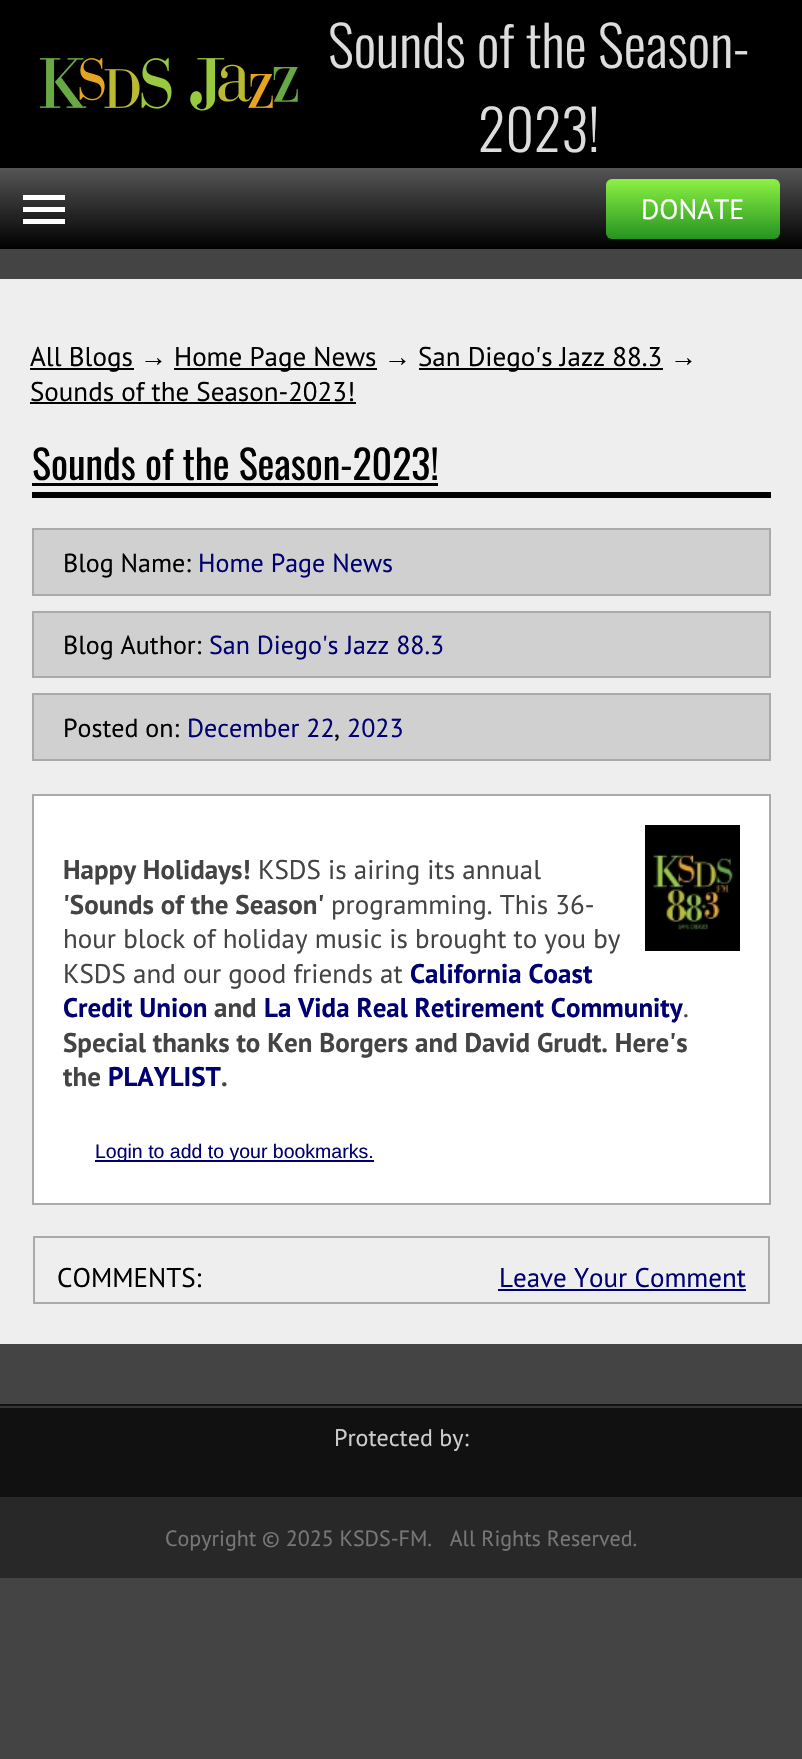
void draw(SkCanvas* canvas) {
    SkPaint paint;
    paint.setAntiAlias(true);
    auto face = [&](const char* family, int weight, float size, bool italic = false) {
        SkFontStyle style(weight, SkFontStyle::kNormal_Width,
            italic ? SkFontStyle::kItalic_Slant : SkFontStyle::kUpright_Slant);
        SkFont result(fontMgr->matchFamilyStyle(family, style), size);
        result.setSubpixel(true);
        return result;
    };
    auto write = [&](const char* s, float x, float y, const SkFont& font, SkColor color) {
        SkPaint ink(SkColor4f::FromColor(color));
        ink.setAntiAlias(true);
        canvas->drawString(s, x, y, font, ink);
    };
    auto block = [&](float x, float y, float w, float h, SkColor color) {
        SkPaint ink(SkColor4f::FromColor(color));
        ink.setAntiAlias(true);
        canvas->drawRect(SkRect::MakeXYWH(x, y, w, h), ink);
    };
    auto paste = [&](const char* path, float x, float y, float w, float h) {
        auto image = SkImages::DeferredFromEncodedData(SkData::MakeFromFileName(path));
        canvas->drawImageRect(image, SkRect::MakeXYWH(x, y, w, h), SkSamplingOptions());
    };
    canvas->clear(SkColorSetRGB(68, 68, 68));
    block(0, 0, 802, 168, SK_ColorBLACK);
    paste("pic1.png", 39, 58, 259, 53);
    auto kFont1 = face("Oswald", 300, 56);
    write("Sounds of the Season-", 328, 68, kFont1, SkColorSetRGB(221, 221, 221));
    write("2023!", 478, 152, kFont1, SkColorSetRGB(221, 221, 221));
    {
        const SkColor colors[] = {SkColorSetRGB(85, 85, 85), SK_ColorBLACK};
        const float stops[] = {0, 1};
        const SkPoint ends[] = {{401, 168}, {401, 249}};
        paint.setShader(SkGradientShader::MakeLinear(ends, colors, stops, 2, SkTileMode::kClamp));
        paint.setAlpha(255);
    }
    canvas->drawRect(SkRect::MakeXYWH(0, 168, 802, 81), paint);
    block(23, 195, 42, 5, SK_ColorWHITE);
    block(23, 219, 42, 5, SK_ColorWHITE);
    block(23, 207, 42, 5, SK_ColorWHITE);
    {
        const SkColor colors[] = {SkColorSetRGB(141, 241, 68), SkColorSetRGB(37, 147, 32)};
        const float stops[] = {0, 1};
        const SkPoint ends[] = {{693, 179}, {693, 239}};
        paint.setShader(SkGradientShader::MakeLinear(ends, colors, stops, 2, SkTileMode::kClamp));
        paint.setAlpha(255);
    }
    canvas->drawRoundRect(SkRect::MakeXYWH(606, 179, 174, 60), 6, 6, paint);
    auto kFont2 = face("PT Sans", 400, 28);
    write("DONATE", 641, 219, kFont2, SK_ColorWHITE);
    block(0, 279, 802, 1065, SkColorSetRGB(238, 238, 238));
    block(30, 368, 104, 2, SK_ColorBLACK);
    auto kFont3 = face("PT Sans", 400, 27);
    write("All Blogs", 30, 366, kFont3, SK_ColorBLACK);
    auto kFont4 = face("Liberation Sans", 400, 27);
    write("→", 140, 366, kFont4, SK_ColorBLACK);
    block(174, 368, 203, 2, SK_ColorBLACK);
    write("Home Page News", 174, 366, kFont3, SK_ColorBLACK);
    write("→", 384, 366, kFont4, SK_ColorBLACK);
    block(419, 368, 244, 2, SK_ColorBLACK);
    write("San Diego's Jazz 88.3", 418, 366, kFont3, SK_ColorBLACK);
    write("→", 670, 366, kFont4, SK_ColorBLACK);
    write("Sounds of the Season-2023!", 30, 401, kFont3, SK_ColorBLACK);
    block(30, 402, 326, 2, SK_ColorBLACK);
    block(32, 492, 739, 6, SK_ColorBLACK);
    auto kFont5 = face("Oswald", 400, 40);
    write("Sounds of the Season-2023!", 32, 480, kFont5, SK_ColorBLACK);
    block(32, 483, 406, 3, SK_ColorBLACK);
    paint.setShader(nullptr);
    paint.setColor(SkColorSetRGB(208, 208, 208));
    canvas->drawRect(SkRect::MakeXYWH(33, 529, 737, 66), paint);
    paint.setStyle(SkPaint::kStroke_Style);
    paint.setStrokeWidth(2);
    paint.setColor(SkColorSetRGB(170, 170, 170));
    canvas->drawRect(SkRect::MakeXYWH(33, 529, 737, 66), paint);
    auto kFont6 = face("PT Sans", 400, 26);
    write("Blog Name:", 63, 572, kFont6, SK_ColorBLACK);
    write("Home Page News", 198, 572, kFont6, SkColorSetRGB(0, 0, 112));
    paint.setStyle(SkPaint::kFill_Style);
    paint.setColor(SkColorSetRGB(208, 208, 208));
    canvas->drawRect(SkRect::MakeXYWH(33, 612, 737, 65), paint);
    paint.setStyle(SkPaint::kStroke_Style);
    paint.setColor(SkColorSetRGB(170, 170, 170));
    canvas->drawRect(SkRect::MakeXYWH(33, 612, 737, 65), paint);
    write("Blog Author:", 63, 654, kFont6, SK_ColorBLACK);
    write("San Diego's Jazz 88.3", 209, 654, kFont6, SkColorSetRGB(0, 0, 112));
    paint.setStyle(SkPaint::kFill_Style);
    paint.setColor(SkColorSetRGB(208, 208, 208));
    canvas->drawRect(SkRect::MakeXYWH(33, 694, 737, 66), paint);
    paint.setStyle(SkPaint::kStroke_Style);
    paint.setColor(SkColorSetRGB(170, 170, 170));
    canvas->drawRect(SkRect::MakeXYWH(33, 694, 737, 66), paint);
    write("Posted on:", 63, 737, kFont6, SK_ColorBLACK);
    write("December 22", 187, 737, kFont6, SkColorSetRGB(0, 0, 112));
    write(",", 334, 737, kFont6, SK_ColorBLACK);
    write("2023", 347, 737, kFont6, SkColorSetRGB(0, 0, 112));
    paint.setStyle(SkPaint::kFill_Style);
    paint.setColor(SK_ColorWHITE);
    canvas->drawRect(SkRect::MakeXYWH(33, 795, 737, 409), paint);
    paint.setStyle(SkPaint::kStroke_Style);
    paint.setColor(SkColorSetRGB(170, 170, 170));
    canvas->drawRect(SkRect::MakeXYWH(33, 795, 737, 409), paint);
    auto kFont7 = face("PT Sans", 700, 27);
    write("Happy Holidays!", 63, 879, kFont7, SkColorSetRGB(68, 68, 68));
    write("KSDS is airing its annual", 258, 879, kFont3, SkColorSetRGB(68, 68, 68));
    write("'Sounds of the Season'", 63, 914, kFont7, SkColorSetRGB(68, 68, 68));
    write("programming. This 36-", 331, 914, kFont3, SkColorSetRGB(68, 68, 68));
    write("hour block of holiday music is brought to you by", 63, 948, kFont3, SkColorSetRGB(68, 68, 68));
    write("KSDS and our good friends at", 63, 983, kFont3, SkColorSetRGB(68, 68, 68));
    write("California Coast", 410, 983, kFont7, SkColorSetRGB(0, 0, 112));
    write("Credit Union", 63, 1017, kFont7, SkColorSetRGB(0, 0, 112));
    write("and", 214, 1017, kFont7, SkColorSetRGB(68, 68, 68));
    write("La Vida Real Retirement Community", 264, 1017, kFont7, SkColorSetRGB(0, 0, 112));
    write(".", 683, 1017, kFont3, SkColorSetRGB(68, 68, 68));
    write("Special thanks to Ken Borgers and David Grudt. Here's", 63, 1052, kFont7, SkColorSetRGB(68, 68, 68));
    write("the", 63, 1086, kFont7, SkColorSetRGB(68, 68, 68));
    write("PLAYLIST", 108, 1086, kFont7, SkColorSetRGB(0, 0, 112));
    write(".", 221, 1086, kFont7, SkColorSetRGB(68, 68, 68));
    paint.setColor(SK_ColorBLACK);
    canvas->drawRect(SkRect::MakeXYWH(646, 826, 93, 124), paint);
    paste("pic2.png", 647, 827, 91, 122);
    block(95, 1160, 279, 2, SkColorSetRGB(0, 0, 112));
    auto kFont8 = face("Liberation Sans", 400, 19.5f);
    write("Login to add to your bookmarks.", 95, 1158, kFont8, SkColorSetRGB(0, 0, 112));
    paint.setColor(SkColorSetRGB(170, 170, 170));
    canvas->drawRect(SkRect::MakeXYWH(34, 1237, 735, 66), paint);
    write("COMMENTS:", 57, 1287, kFont3, SK_ColorBLACK);
    write("Leave Your Comment", 499, 1287, kFont3, SkColorSetRGB(0, 0, 112));
    block(498, 1289, 248, 2, SkColorSetRGB(0, 0, 112));
    block(0, 1404, 802, 93, SkColorSetRGB(17, 17, 17));
    block(0, 1406, 802, 2, SkColorSetRGB(54, 54, 54));
    auto kFont9 = face("PT Sans", 400, 24);
    write("Protected by:", 334, 1446, kFont9, SkColorSetRGB(204, 204, 204));
    block(0, 1497, 802, 81, SkColorSetRGB(40, 40, 40));
    auto kFont10 = face("PT Sans", 400, 22);
    write("Copyright © 2025 KSDS-FM.   All Rights Reserved.", 165, 1546, kFont10, SkColorSetRGB(119, 119, 119));
}
